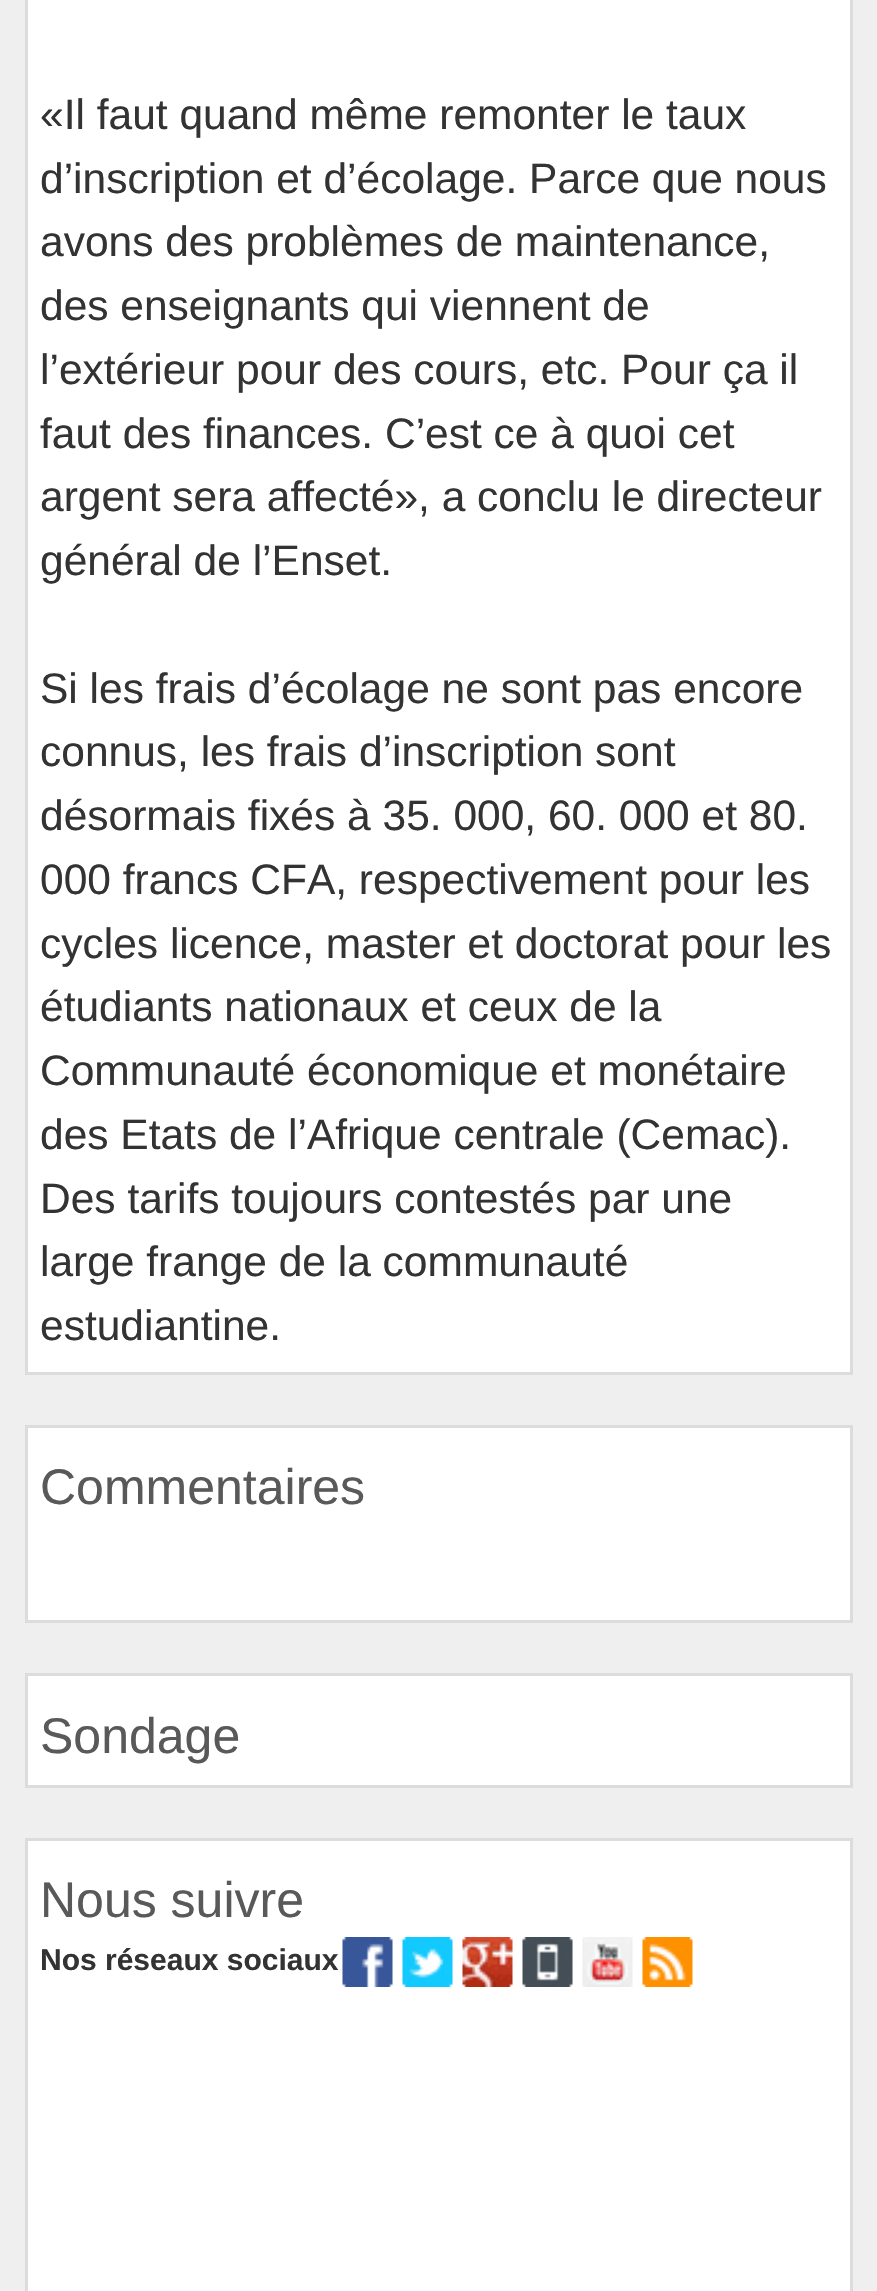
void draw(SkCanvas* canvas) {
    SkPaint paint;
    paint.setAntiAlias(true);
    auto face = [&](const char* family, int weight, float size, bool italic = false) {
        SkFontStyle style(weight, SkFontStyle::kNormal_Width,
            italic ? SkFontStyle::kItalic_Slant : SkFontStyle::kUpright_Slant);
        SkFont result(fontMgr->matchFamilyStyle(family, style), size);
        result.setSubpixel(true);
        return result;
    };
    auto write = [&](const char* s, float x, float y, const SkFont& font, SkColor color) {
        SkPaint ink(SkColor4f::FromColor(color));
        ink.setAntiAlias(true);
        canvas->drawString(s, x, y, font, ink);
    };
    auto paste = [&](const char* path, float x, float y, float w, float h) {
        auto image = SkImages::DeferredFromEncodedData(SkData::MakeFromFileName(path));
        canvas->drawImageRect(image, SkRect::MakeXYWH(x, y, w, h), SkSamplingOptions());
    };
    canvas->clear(SkColorSetRGB(239, 239, 239));
    paint.setColor(SK_ColorWHITE);
    canvas->drawRect(SkRect::MakeXYWH(26.5f, -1.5f, 825, 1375), paint);
    paint.setStyle(SkPaint::kStroke_Style);
    paint.setStrokeWidth(3);
    paint.setColor(SkColorSetRGB(220, 220, 220));
    canvas->drawRect(SkRect::MakeXYWH(26.5f, -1.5f, 825, 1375), paint);
    auto kFont1 = face("Liberation Sans", 400, 42.5f);
    write("«Il faut quand même remonter le taux", 40, 129, kFont1, SkColorSetRGB(51, 51, 51));
    write("d’inscription et d’écolage. Parce que nous", 40, 193, kFont1, SkColorSetRGB(51, 51, 51));
    write("avons des problèmes de maintenance,", 40, 256, kFont1, SkColorSetRGB(51, 51, 51));
    write("des enseignants qui viennent de", 40, 320, kFont1, SkColorSetRGB(51, 51, 51));
    write("l’extérieur pour des cours, etc. Pour ça il", 40, 384, kFont1, SkColorSetRGB(51, 51, 51));
    write("faut des finances. C’est ce à quoi cet", 40, 448, kFont1, SkColorSetRGB(51, 51, 51));
    write("argent sera affecté», a conclu le directeur", 40, 511, kFont1, SkColorSetRGB(51, 51, 51));
    write("général de l’Enset.", 40, 575, kFont1, SkColorSetRGB(51, 51, 51));
    write("Si les frais d’écolage ne sont pas encore", 40, 703, kFont1, SkColorSetRGB(51, 51, 51));
    write("connus, les frais d’inscription sont", 40, 766, kFont1, SkColorSetRGB(51, 51, 51));
    write("désormais fixés à 35. 000, 60. 000 et 80.", 40, 830, kFont1, SkColorSetRGB(51, 51, 51));
    write("000 francs CFA, respectivement pour les", 40, 894, kFont1, SkColorSetRGB(51, 51, 51));
    write("cycles licence, master et doctorat pour les", 40, 958, kFont1, SkColorSetRGB(51, 51, 51));
    write("étudiants nationaux et ceux de la", 40, 1021, kFont1, SkColorSetRGB(51, 51, 51));
    write("Communauté économique et monétaire", 40, 1085, kFont1, SkColorSetRGB(51, 51, 51));
    write("des Etats de l’Afrique centrale (Cemac).", 40, 1149, kFont1, SkColorSetRGB(51, 51, 51));
    write("Des tarifs toujours contestés par une", 40, 1213, kFont1, SkColorSetRGB(51, 51, 51));
    write("large frange de la communauté", 40, 1276, kFont1, SkColorSetRGB(51, 51, 51));
    write("estudiantine.", 40, 1340, kFont1, SkColorSetRGB(51, 51, 51));
    paint.setStyle(SkPaint::kFill_Style);
    paint.setColor(SK_ColorWHITE);
    canvas->drawRect(SkRect::MakeXYWH(26.5f, 1426.5f, 825, 195), paint);
    paint.setStyle(SkPaint::kStroke_Style);
    paint.setColor(SkColorSetRGB(220, 220, 220));
    canvas->drawRect(SkRect::MakeXYWH(26.5f, 1426.5f, 825, 195), paint);
    auto kFont2 = face("Liberation Sans", 400, 50);
    write("Commentaires", 40, 1504, kFont2, SkColorSetRGB(89, 89, 89));
    paint.setStyle(SkPaint::kFill_Style);
    paint.setColor(SK_ColorWHITE);
    canvas->drawRect(SkRect::MakeXYWH(26.5f, 1674.5f, 825, 112), paint);
    paint.setStyle(SkPaint::kStroke_Style);
    paint.setColor(SkColorSetRGB(220, 220, 220));
    canvas->drawRect(SkRect::MakeXYWH(26.5f, 1674.5f, 825, 112), paint);
    write("Sondage", 40, 1753, kFont2, SkColorSetRGB(89, 89, 89));
    paint.setStyle(SkPaint::kFill_Style);
    paint.setColor(SK_ColorWHITE);
    canvas->drawRect(SkRect::MakeXYWH(26.5f, 1839.5f, 825, 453), paint);
    paint.setStyle(SkPaint::kStroke_Style);
    paint.setColor(SkColorSetRGB(220, 220, 220));
    canvas->drawRect(SkRect::MakeXYWH(26.5f, 1839.5f, 825, 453), paint);
    write("Nous suivre", 40, 1917, kFont2, SkColorSetRGB(89, 89, 89));
    auto kFont3 = face("Liberation Sans", 700, 30);
    write("Nos réseaux sociaux", 40, 1970, kFont3, SkColorSetRGB(51, 51, 51));
    paste("pic1.png", 342, 1937, 51, 50);
    paste("pic2.png", 402, 1937, 51, 50);
    paste("pic3.png", 462, 1937, 51, 50);
    paste("pic4.png", 522, 1937, 51, 50);
    paste("pic5.png", 582, 1937, 51, 50);
    paste("pic6.png", 642, 1937, 51, 50);
}
